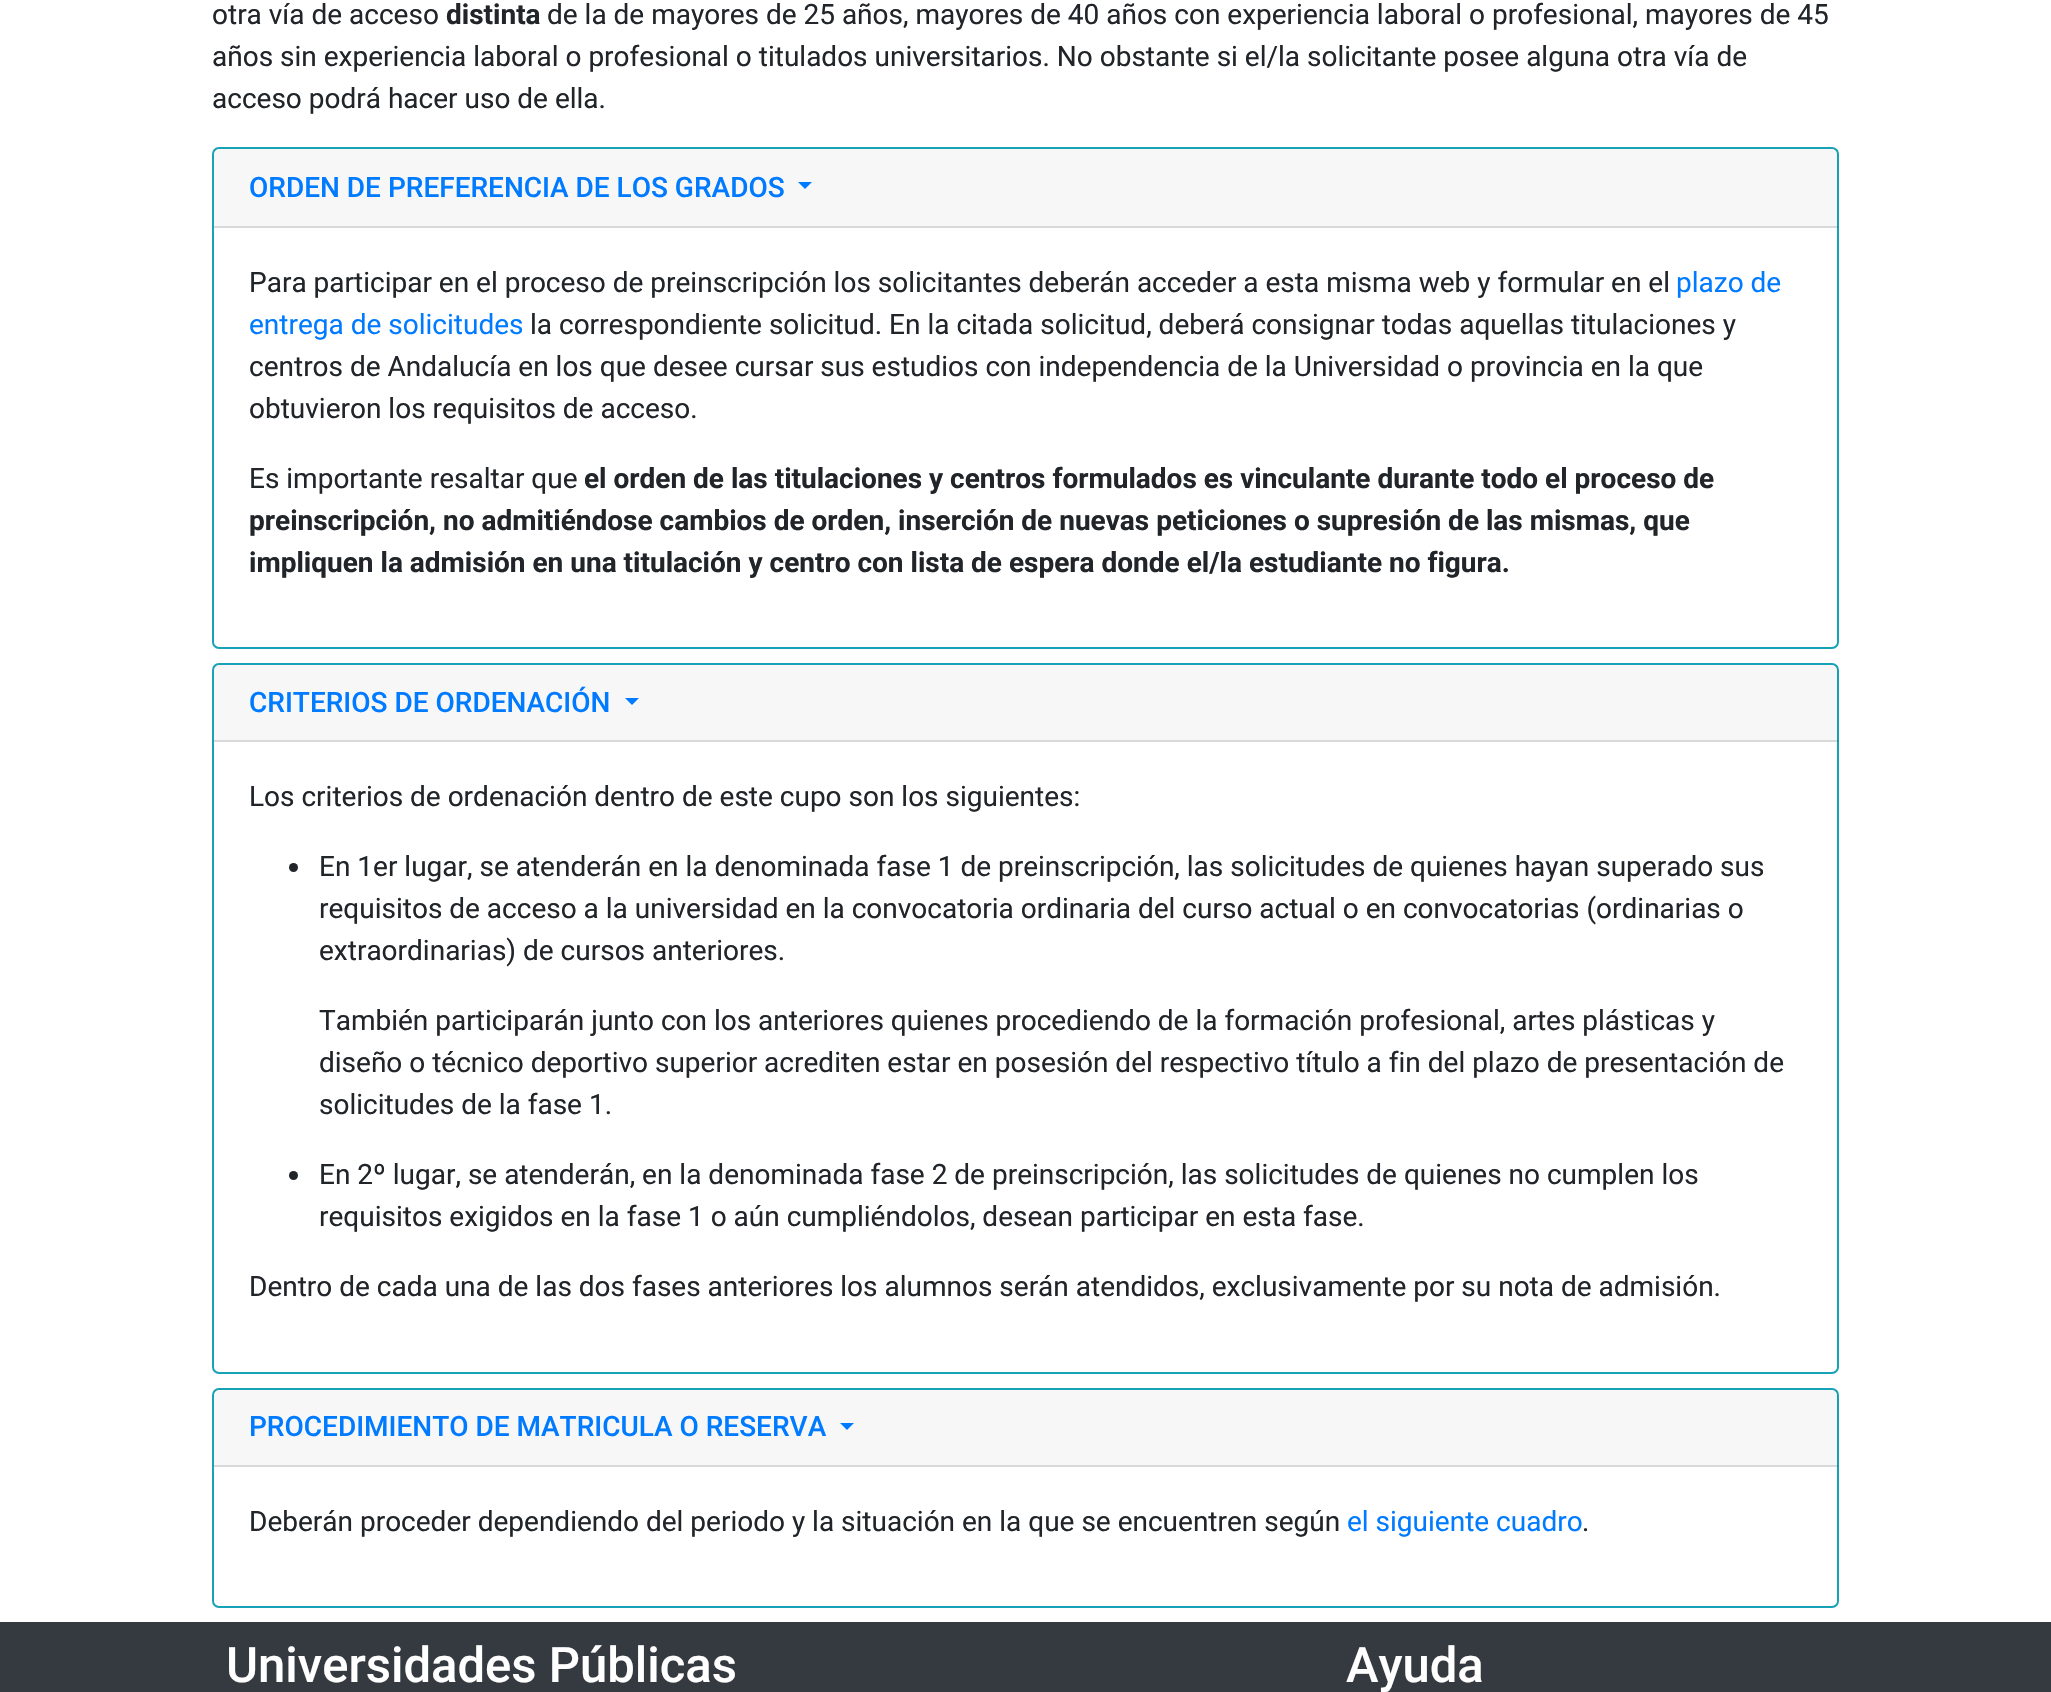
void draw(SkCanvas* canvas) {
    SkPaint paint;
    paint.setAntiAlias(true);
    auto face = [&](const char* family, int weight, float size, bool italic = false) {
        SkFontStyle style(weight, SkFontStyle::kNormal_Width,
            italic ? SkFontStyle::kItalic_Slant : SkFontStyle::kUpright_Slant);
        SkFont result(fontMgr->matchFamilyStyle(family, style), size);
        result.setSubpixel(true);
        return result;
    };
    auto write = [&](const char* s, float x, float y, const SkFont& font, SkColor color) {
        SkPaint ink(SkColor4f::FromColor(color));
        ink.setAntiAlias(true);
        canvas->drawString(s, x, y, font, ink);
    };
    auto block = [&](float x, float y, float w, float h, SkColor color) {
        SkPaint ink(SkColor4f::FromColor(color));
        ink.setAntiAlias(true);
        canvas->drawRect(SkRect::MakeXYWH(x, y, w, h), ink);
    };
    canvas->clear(SK_ColorWHITE);
    auto kFont1 = face("Roboto", 400, 28);
    write("otra vía de acceso", 212, 24, kFont1, SkColorSetRGB(33, 37, 41));
    auto kFont2 = face("Roboto", 700, 28);
    write("distinta", 446, 24, kFont2, SkColorSetRGB(33, 37, 41));
    write("de la de mayores de 25 años, mayores de 40 años con experiencia laboral o profesional, mayores de 45", 547, 24, kFont1, SkColorSetRGB(33, 37, 41));
    write("años sin experiencia laboral o profesional o titulados universitarios. No obstante si el/la solicitante posee alguna otra vía de", 212, 66, kFont1, SkColorSetRGB(33, 37, 41));
    write("acceso podrá hacer uso de ella.", 212, 108, kFont1, SkColorSetRGB(33, 37, 41));
    paint.setStyle(SkPaint::kStroke_Style);
    paint.setStrokeWidth(2);
    paint.setColor(SkColorSetRGB(23, 162, 184));
    canvas->drawRoundRect(SkRect::MakeXYWH(213, 148, 1625, 500), 6, 6, paint);
    block(214, 149, 1624, 79, SkColorSetARGB(8, 0, 0, 0));
    block(214, 226, 1624, 2, SkColorSetARGB(31, 0, 0, 0));
    auto kFont3 = face("Roboto", 500, 28);
    write("ORDEN DE PREFERENCIA DE LOS GRADOS", 249, 197, kFont3, SkColorSetRGB(0, 123, 255));
    paint.setStyle(SkPaint::kFill_Style);
    paint.setColor(SkColorSetRGB(0, 123, 255));
    canvas->drawPath(SkPathBuilder().moveTo(798, 182).lineTo(812, 182).lineTo(805, 189).close().detach(), paint);
    write("Para participar en el proceso de preinscripción los solicitantes deberán acceder a esta misma web y formular en el", 249, 292, kFont1, SkColorSetRGB(33, 37, 41));
    write("plazo de", 1676, 292, kFont1, SkColorSetRGB(0, 123, 255));
    write("entrega de solicitudes", 249, 334, kFont1, SkColorSetRGB(0, 123, 255));
    write("la correspondiente solicitud. En la citada solicitud, deberá consignar todas aquellas titulaciones y", 530, 334, kFont1, SkColorSetRGB(33, 37, 41));
    write("centros de Andalucía en los que desee cursar sus estudios con independencia de la Universidad o provincia en la que", 249, 376, kFont1, SkColorSetRGB(33, 37, 41));
    write("obtuvieron los requisitos de acceso.", 249, 418, kFont1, SkColorSetRGB(33, 37, 41));
    write("Es importante resaltar que", 249, 488, kFont1, SkColorSetRGB(33, 37, 41));
    write("el orden de las titulaciones y centros formulados es vinculante durante todo el proceso de", 584, 488, kFont2, SkColorSetRGB(33, 37, 41));
    write("preinscripción, no admitiéndose cambios de orden, inserción de nuevas peticiones o supresión de las mismas, que", 249, 530, kFont2, SkColorSetRGB(33, 37, 41));
    write("impliquen la admisión en una titulación y centro con lista de espera donde el/la estudiante no figura.", 249, 572, kFont2, SkColorSetRGB(33, 37, 41));
    paint.setStyle(SkPaint::kStroke_Style);
    paint.setColor(SkColorSetRGB(23, 162, 184));
    canvas->drawRoundRect(SkRect::MakeXYWH(213, 664, 1625, 709), 6, 6, paint);
    block(214, 665, 1624, 77, SkColorSetARGB(8, 0, 0, 0));
    block(214, 740, 1624, 2, SkColorSetARGB(31, 0, 0, 0));
    write("CRITERIOS DE ORDENACIÓN", 249, 712, kFont3, SkColorSetRGB(0, 123, 255));
    paint.setStyle(SkPaint::kFill_Style);
    paint.setColor(SkColorSetRGB(0, 123, 255));
    canvas->drawPath(SkPathBuilder().moveTo(625, 698).lineTo(639, 698).lineTo(632, 705).close().detach(), paint);
    write("Los criterios de ordenación dentro de este cupo son los siguientes:", 249, 806, kFont1, SkColorSetRGB(33, 37, 41));
    paint.setColor(SkColorSetRGB(33, 37, 41));
    canvas->drawCircle(293.5f, 867.5f, 4.5f, paint);
    write("En 1er lugar, se atenderán en la denominada fase 1 de preinscripción, las solicitudes de quienes hayan superado sus", 319, 876, kFont1, SkColorSetRGB(33, 37, 41));
    write("requisitos de acceso a la universidad en la convocatoria ordinaria del curso actual o en convocatorias (ordinarias o", 319, 918, kFont1, SkColorSetRGB(33, 37, 41));
    write("extraordinarias) de cursos anteriores.", 319, 960, kFont1, SkColorSetRGB(33, 37, 41));
    write("También participarán junto con los anteriores quienes procediendo de la formación profesional, artes plásticas y", 319, 1030, kFont1, SkColorSetRGB(33, 37, 41));
    write("diseño o técnico deportivo superior acrediten estar en posesión del respectivo título a fin del plazo de presentación de", 319, 1072, kFont1, SkColorSetRGB(33, 37, 41));
    write("solicitudes de la fase 1.", 319, 1114, kFont1, SkColorSetRGB(33, 37, 41));
    canvas->drawCircle(293.5f, 1175.5f, 4.5f, paint);
    write("En 2º lugar, se atenderán, en la denominada fase 2 de preinscripción, las solicitudes de quienes no cumplen los", 319, 1184, kFont1, SkColorSetRGB(33, 37, 41));
    write("requisitos exigidos en la fase 1 o aún cumpliéndolos, desean participar en esta fase.", 319, 1226, kFont1, SkColorSetRGB(33, 37, 41));
    write("Dentro de cada una de las dos fases anteriores los alumnos serán atendidos, exclusivamente por su nota de admisión.", 249, 1296, kFont1, SkColorSetRGB(33, 37, 41));
    paint.setStyle(SkPaint::kStroke_Style);
    paint.setColor(SkColorSetRGB(23, 162, 184));
    canvas->drawRoundRect(SkRect::MakeXYWH(213, 1389, 1625, 218), 6, 6, paint);
    block(214, 1390, 1624, 77, SkColorSetARGB(8, 0, 0, 0));
    block(214, 1465, 1624, 2, SkColorSetARGB(31, 0, 0, 0));
    write("PROCEDIMIENTO DE MATRICULA O RESERVA", 249, 1436, kFont3, SkColorSetRGB(0, 123, 255));
    paint.setStyle(SkPaint::kFill_Style);
    paint.setColor(SkColorSetRGB(0, 123, 255));
    canvas->drawPath(SkPathBuilder().moveTo(840, 1423).lineTo(854, 1423).lineTo(847, 1430).close().detach(), paint);
    write("Deberán proceder dependiendo del periodo y la situación en la que se encuentren según", 249, 1531, kFont1, SkColorSetRGB(33, 37, 41));
    write("el siguiente cuadro", 1347, 1531, kFont1, SkColorSetRGB(0, 123, 255));
    write(".", 1582, 1531, kFont1, SkColorSetRGB(33, 37, 41));
    block(0, 1622, 2051, 70, SkColorSetRGB(52, 58, 64));
    auto kFont4 = face("Roboto", 500, 49);
    write("Universidades Públicas", 226, 1682, kFont4, SK_ColorWHITE);
    write("Ayuda", 1346, 1682, kFont4, SK_ColorWHITE);
}
